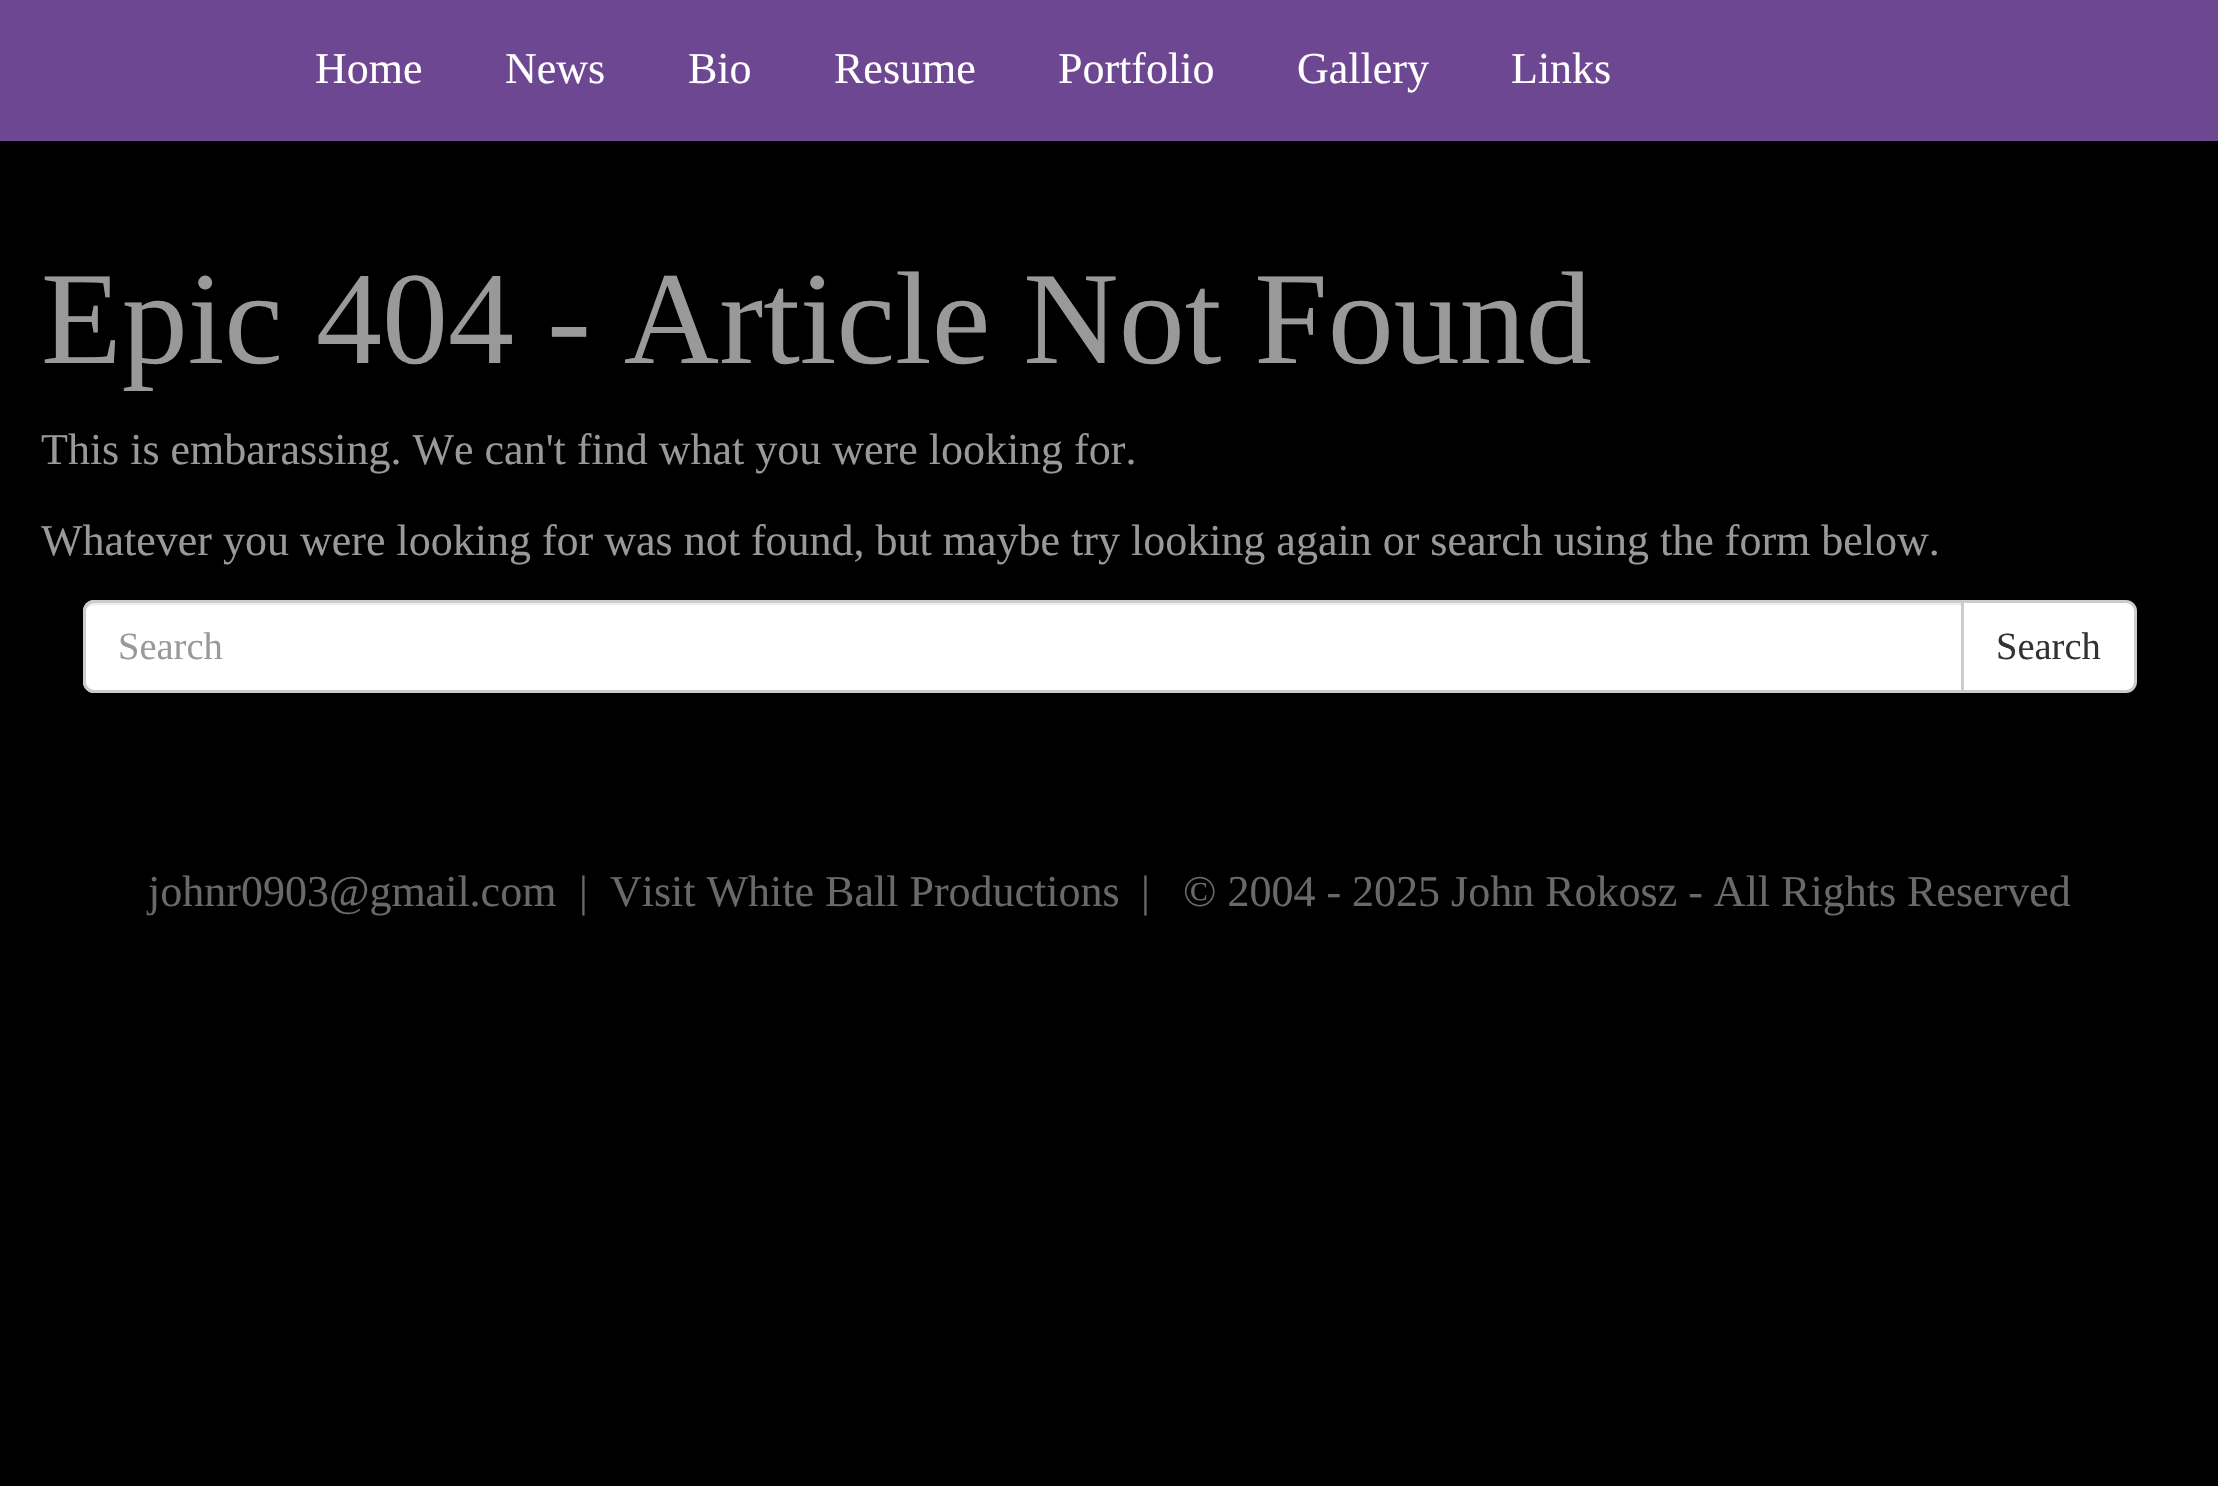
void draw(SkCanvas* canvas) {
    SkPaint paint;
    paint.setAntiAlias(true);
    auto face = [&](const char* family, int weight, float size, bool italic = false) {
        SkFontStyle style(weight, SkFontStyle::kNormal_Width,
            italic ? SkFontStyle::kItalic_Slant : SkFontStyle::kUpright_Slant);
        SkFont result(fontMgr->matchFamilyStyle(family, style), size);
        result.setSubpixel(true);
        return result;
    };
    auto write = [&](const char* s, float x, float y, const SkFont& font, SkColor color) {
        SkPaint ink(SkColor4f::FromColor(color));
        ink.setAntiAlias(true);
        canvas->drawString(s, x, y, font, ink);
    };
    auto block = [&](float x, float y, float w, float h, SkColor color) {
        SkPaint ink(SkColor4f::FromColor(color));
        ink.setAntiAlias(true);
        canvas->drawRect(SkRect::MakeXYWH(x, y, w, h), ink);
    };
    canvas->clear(SK_ColorBLACK);
    block(0, 0, 2218, 141, SkColorSetRGB(109, 71, 146));
    auto kFont1 = face("Liberation Serif", 400, 44);
    write("Home", 315, 83, kFont1, SK_ColorWHITE);
    write("News", 505, 83, kFont1, SK_ColorWHITE);
    write("Bio", 688, 83, kFont1, SK_ColorWHITE);
    write("Resume", 834, 83, kFont1, SK_ColorWHITE);
    write("Portfolio", 1058, 83, kFont1, SK_ColorWHITE);
    write("Gallery", 1297, 83, kFont1, SK_ColorWHITE);
    write("Links", 1511, 83, kFont1, SK_ColorWHITE);
    auto kFont2 = face("Liberation Serif", 400, 132);
    write("Epic 404 - Article Not Found", 41, 363, kFont2, SkColorSetRGB(153, 153, 153));
    write("This is embarassing. We can't find what you were looking for.", 41, 464, kFont1, SkColorSetRGB(153, 153, 153));
    write("Whatever you were looking for was not found, but maybe try looking again or search using the form below.", 41, 555, kFont1, SkColorSetRGB(153, 153, 153));
    paint.setColor(SK_ColorWHITE);
    canvas->drawPath(SkPathBuilder().moveTo(94, 600).lineTo(1964, 600).lineTo(1964, 693).lineTo(94, 693).cubicTo(88, 693, 83, 688, 83, 682).lineTo(83, 611).cubicTo(83, 605, 88, 600, 94, 600).close().detach(), paint);
    paint.setColor(SkColorSetRGB(236, 236, 236));
    canvas->drawPath(SkPathBuilder().moveTo(94, 605).lineTo(1961, 605).lineTo(1961, 602).lineTo(93, 602).cubicTo(89, 602, 85, 606, 85, 610).lineTo(85, 613).cubicTo(85, 609, 89, 605, 94, 605).close().detach(), paint);
    paint.setStyle(SkPaint::kStroke_Style);
    paint.setStrokeWidth(3);
    paint.setColor(SkColorSetRGB(204, 204, 204));
    canvas->drawPath(SkPathBuilder().moveTo(94, 601.5f).lineTo(1962.5f, 601.5f).lineTo(1962.5f, 691.5f).lineTo(94, 691.5f).cubicTo(89, 691.5f, 84.5f, 687, 84.5f, 682).lineTo(84.5f, 611).cubicTo(84.5f, 606, 89, 601.5f, 94, 601.5f).close().detach(), paint);
    auto kFont3 = face("Liberation Serif", 400, 38.5f);
    write("Search", 118, 659, kFont3, SkColorSetRGB(153, 153, 153));
    paint.setStyle(SkPaint::kFill_Style);
    paint.setColor(SK_ColorWHITE);
    canvas->drawPath(SkPathBuilder().moveTo(1962.5f, 601.5f).lineTo(2126, 601.5f).cubicTo(2131, 601.5f, 2135.5f, 606, 2135.5f, 611).lineTo(2135.5f, 682).cubicTo(2135.5f, 687, 2131, 691.5f, 2126, 691.5f).lineTo(1962.5f, 691.5f).close().detach(), paint);
    paint.setStyle(SkPaint::kStroke_Style);
    paint.setColor(SkColorSetRGB(204, 204, 204));
    canvas->drawPath(SkPathBuilder().moveTo(1962.5f, 601.5f).lineTo(2126, 601.5f).cubicTo(2131, 601.5f, 2135.5f, 606, 2135.5f, 611).lineTo(2135.5f, 682).cubicTo(2135.5f, 687, 2131, 691.5f, 2126, 691.5f).lineTo(1962.5f, 691.5f).close().detach(), paint);
    write("Search", 1996, 659, kFont3, SkColorSetRGB(51, 51, 51));
    write("johnr0903@gmail.com", 148, 906, kFont1, SkColorSetRGB(105, 105, 105));
    write("|", 579, 906, kFont1, SkColorSetRGB(105, 105, 105));
    write("Visit White Ball Productions", 610, 906, kFont1, SkColorSetRGB(105, 105, 105));
    write("|", 1141, 906, kFont1, SkColorSetRGB(105, 105, 105));
    write("© 2004 - 2025 John Rokosz - All Rights Reserved", 1183, 906, kFont1, SkColorSetRGB(105, 105, 105));
}
